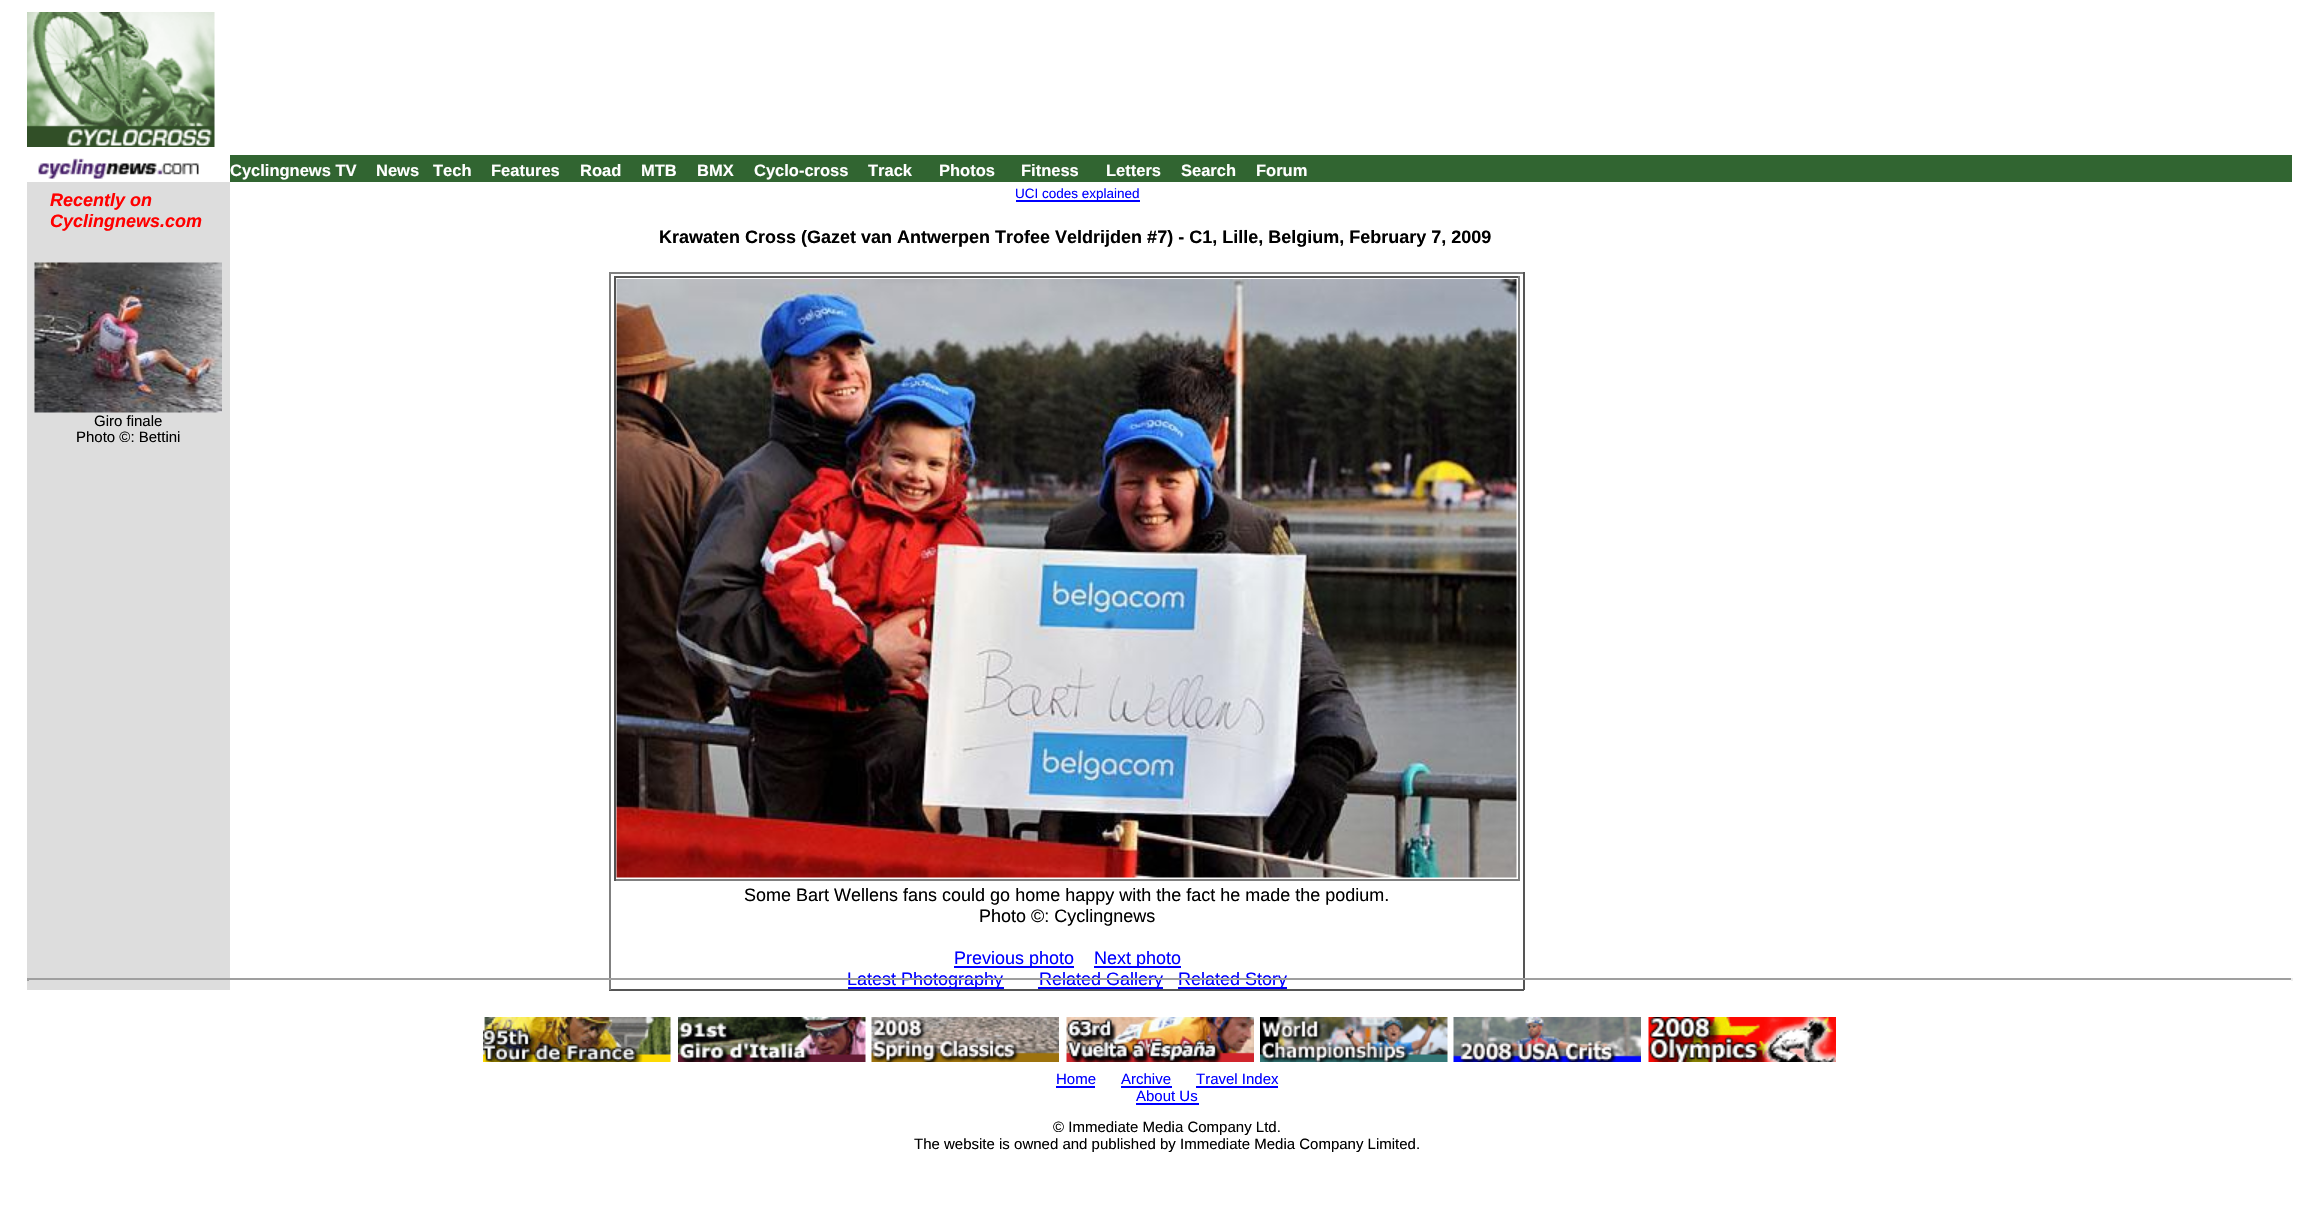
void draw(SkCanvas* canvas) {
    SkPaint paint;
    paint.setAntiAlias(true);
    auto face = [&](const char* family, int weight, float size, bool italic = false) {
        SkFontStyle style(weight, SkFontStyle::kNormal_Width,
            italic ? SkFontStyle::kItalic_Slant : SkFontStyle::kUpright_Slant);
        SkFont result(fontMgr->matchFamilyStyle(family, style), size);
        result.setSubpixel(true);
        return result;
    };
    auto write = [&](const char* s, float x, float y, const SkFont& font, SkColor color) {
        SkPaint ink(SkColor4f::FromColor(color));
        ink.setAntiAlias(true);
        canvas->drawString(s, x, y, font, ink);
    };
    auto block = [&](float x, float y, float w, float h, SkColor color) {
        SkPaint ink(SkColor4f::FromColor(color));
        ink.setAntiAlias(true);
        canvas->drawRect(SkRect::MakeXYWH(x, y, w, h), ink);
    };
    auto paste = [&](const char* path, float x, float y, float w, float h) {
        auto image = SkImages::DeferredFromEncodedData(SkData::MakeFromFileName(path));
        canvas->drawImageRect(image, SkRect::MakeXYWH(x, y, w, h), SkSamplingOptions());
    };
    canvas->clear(SK_ColorWHITE);
    paste("pic1.png", 27, 12, 188, 135);
    paste("pic2.png", 38, 158, 161, 21);
    block(230, 155, 2062, 27, SkColorSetRGB(49, 101, 49));
    auto kFont1 = face("Liberation Sans", 700, 16.5f);
    write("Cyclingnews TV", 230, 176, kFont1, SK_ColorWHITE);
    write("News", 376, 176, kFont1, SK_ColorWHITE);
    write("Tech", 433, 176, kFont1, SK_ColorWHITE);
    write("Features", 491, 176, kFont1, SK_ColorWHITE);
    write("Road", 580, 176, kFont1, SK_ColorWHITE);
    write("MTB", 641, 176, kFont1, SK_ColorWHITE);
    write("BMX", 697, 176, kFont1, SK_ColorWHITE);
    write("Cyclo-cross", 754, 176, kFont1, SK_ColorWHITE);
    write("Track", 868, 176, kFont1, SK_ColorWHITE);
    write("Photos", 939, 176, kFont1, SK_ColorWHITE);
    write("Fitness", 1021, 176, kFont1, SK_ColorWHITE);
    write("Letters", 1106, 176, kFont1, SK_ColorWHITE);
    write("Search", 1181, 176, kFont1, SK_ColorWHITE);
    write("Forum", 1256, 176, kFont1, SK_ColorWHITE);
    block(27, 182, 203, 808, SkColorSetRGB(221, 221, 221));
    auto kFont2 = face("Liberation Sans", 700, 18, true);
    write("Recently on", 50, 206, kFont2, SkColorSetRGB(255, 0, 0));
    write("Cyclingnews.com", 50, 227, kFont2, SkColorSetRGB(255, 0, 0));
    paste("pic3.png", 34, 262, 188, 151);
    auto kFont3 = face("Liberation Sans", 400, 15);
    write("Giro finale", 94, 426, kFont3, SK_ColorBLACK);
    write("Photo ©: Bettini", 76, 442, kFont3, SK_ColorBLACK);
    block(1016, 200, 124, 2, SkColorSetRGB(0, 0, 255));
    auto kFont4 = face("Liberation Sans", 400, 13.5f);
    write("UCI codes explained", 1015, 198, kFont4, SkColorSetRGB(0, 0, 255));
    auto kFont5 = face("Liberation Sans", 700, 18);
    write("Krawaten Cross (Gazet van Antwerpen Trofee Veldrijden #7) - C1, Lille, Belgium, February 7, 2009", 659, 243, kFont5, SK_ColorBLACK);
    block(609, 272, 915, 2, SkColorSetRGB(128, 128, 128));
    block(1523, 272, 2, 718, SkColorSetRGB(85, 85, 85));
    block(609, 989, 915, 2, SkColorSetRGB(85, 85, 85));
    block(609, 272, 2, 718, SkColorSetRGB(128, 128, 128));
    block(614, 276, 906, 2, SkColorSetRGB(85, 85, 85));
    block(1518, 276, 2, 605, SkColorSetRGB(128, 128, 128));
    block(614, 879, 906, 2, SkColorSetRGB(128, 128, 128));
    block(614, 276, 2, 605, SkColorSetRGB(85, 85, 85));
    paste("pic4.png", 616, 279, 901, 599);
    auto kFont6 = face("Liberation Sans", 400, 18);
    write("Some Bart Wellens fans could go home happy with the fact he made the podium.", 744, 901, kFont6, SK_ColorBLACK);
    write("Photo ©: Cyclingnews", 979, 922, kFont6, SK_ColorBLACK);
    block(954, 966, 120, 2, SkColorSetRGB(0, 0, 255));
    write("Previous photo", 954, 964, kFont6, SkColorSetRGB(0, 0, 255));
    block(1094, 966, 87, 2, SkColorSetRGB(0, 0, 255));
    write("Next photo", 1094, 964, kFont6, SkColorSetRGB(0, 0, 255));
    block(848, 987, 156, 2, SkColorSetRGB(0, 0, 255));
    write("Latest Photography", 847, 985, kFont6, SkColorSetRGB(0, 0, 255));
    block(1038, 987, 125, 2, SkColorSetRGB(0, 0, 255));
    write("Related Gallery", 1039, 985, kFont6, SkColorSetRGB(0, 0, 255));
    block(1178, 987, 109, 2, SkColorSetRGB(0, 0, 255));
    write("Related Story", 1178, 985, kFont6, SkColorSetRGB(0, 0, 255));
    block(27, 978, 2265, 2, SkColorSetRGB(159, 159, 159));
    block(2291, 978, 2, 3, SkColorSetRGB(238, 238, 238));
    block(27, 978, 2, 3, SkColorSetRGB(159, 159, 159));
    paste("pic5.png", 483, 1017, 188, 45);
    paste("pic6.png", 678, 1017, 188, 45);
    paste("pic7.png", 871, 1017, 188, 45);
    paste("pic8.png", 1066, 1017, 188, 45);
    paste("pic9.png", 1260, 1017, 188, 45);
    paste("pic10.png", 1453, 1017, 188, 45);
    paste("pic11.png", 1648, 1017, 188, 45);
    write("Home", 1056, 1084, kFont3, SkColorSetRGB(0, 0, 255));
    block(1056, 1086, 39, 2, SkColorSetRGB(0, 0, 255));
    write("Archive", 1121, 1084, kFont3, SkColorSetRGB(0, 0, 255));
    block(1121, 1086, 51, 2, SkColorSetRGB(0, 0, 255));
    write("Travel Index", 1196, 1084, kFont3, SkColorSetRGB(0, 0, 255));
    block(1196, 1086, 82, 2, SkColorSetRGB(0, 0, 255));
    write("About Us", 1136, 1101, kFont3, SkColorSetRGB(0, 0, 255));
    block(1136, 1103, 63, 2, SkColorSetRGB(0, 0, 255));
    write("© Immediate Media Company Ltd.", 1053, 1132, kFont3, SK_ColorBLACK);
    write("The website is owned and published by Immediate Media Company Limited.", 914, 1149, kFont3, SK_ColorBLACK);
}
